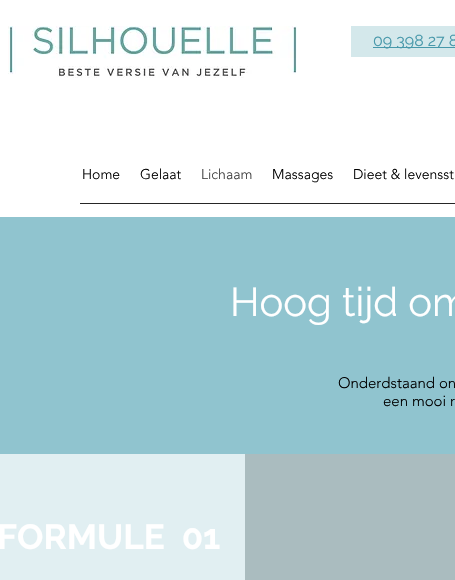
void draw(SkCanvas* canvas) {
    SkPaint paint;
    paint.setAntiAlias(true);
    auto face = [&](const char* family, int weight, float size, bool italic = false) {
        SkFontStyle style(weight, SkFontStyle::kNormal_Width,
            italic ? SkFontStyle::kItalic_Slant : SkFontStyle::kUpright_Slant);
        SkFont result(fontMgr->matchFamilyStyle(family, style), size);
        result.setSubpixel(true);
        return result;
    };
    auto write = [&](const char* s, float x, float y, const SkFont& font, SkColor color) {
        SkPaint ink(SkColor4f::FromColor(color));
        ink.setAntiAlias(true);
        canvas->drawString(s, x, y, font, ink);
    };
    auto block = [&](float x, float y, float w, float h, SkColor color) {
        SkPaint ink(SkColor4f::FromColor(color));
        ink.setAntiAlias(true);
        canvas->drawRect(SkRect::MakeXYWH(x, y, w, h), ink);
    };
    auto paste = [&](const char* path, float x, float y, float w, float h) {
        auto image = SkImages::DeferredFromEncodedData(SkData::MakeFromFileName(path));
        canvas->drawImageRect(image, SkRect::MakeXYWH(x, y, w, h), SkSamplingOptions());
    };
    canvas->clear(SK_ColorWHITE);
    paste("pic1.png", 8, 26, 289, 52);
    block(351, 26, 104, 31, SkColorSetRGB(212, 232, 235));
    block(373, 47, 82, 1, SkColorSetRGB(71, 152, 170));
    auto kFont1 = face("Raleway", 400, 16);
    write("09 398 27 8", 373, 46, kFont1, SkColorSetRGB(71, 152, 170));
    auto kFont2 = face("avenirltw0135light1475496", 300, 14);
    write("Home", 82, 179, kFont2, SK_ColorBLACK);
    write("Gelaat", 140, 179, kFont2, SK_ColorBLACK);
    write("Lichaam", 201, 179, kFont2, SkColorSetRGB(64, 64, 64));
    write("Massages", 272, 179, kFont2, SK_ColorBLACK);
    write("Dieet & levensst", 353, 179, kFont2, SK_ColorBLACK);
    block(80, 203, 375, 1, SkColorSetRGB(38, 38, 38));
    block(0, 217, 455, 237, SkColorSetRGB(144, 196, 207));
    auto kFont3 = face("Raleway", 400, 40);
    write("Hoog tijd om", 230, 316, kFont3, SK_ColorWHITE);
    auto kFont4 = face("avenirltw0135light1475496", 300, 15);
    write("Onderdstaand on", 338, 388, kFont4, SK_ColorBLACK);
    write("een mooi r", 383, 406, kFont4, SK_ColorBLACK);
    block(0, 454, 245, 126, SkColorSetRGB(225, 239, 242));
    auto kFont5 = face("Raleway", 700, 35);
    write("FORMULE  01", -3, 549, kFont5, SK_ColorWHITE);
    block(245, 454, 210, 126, SkColorSetRGB(170, 188, 191));
}
